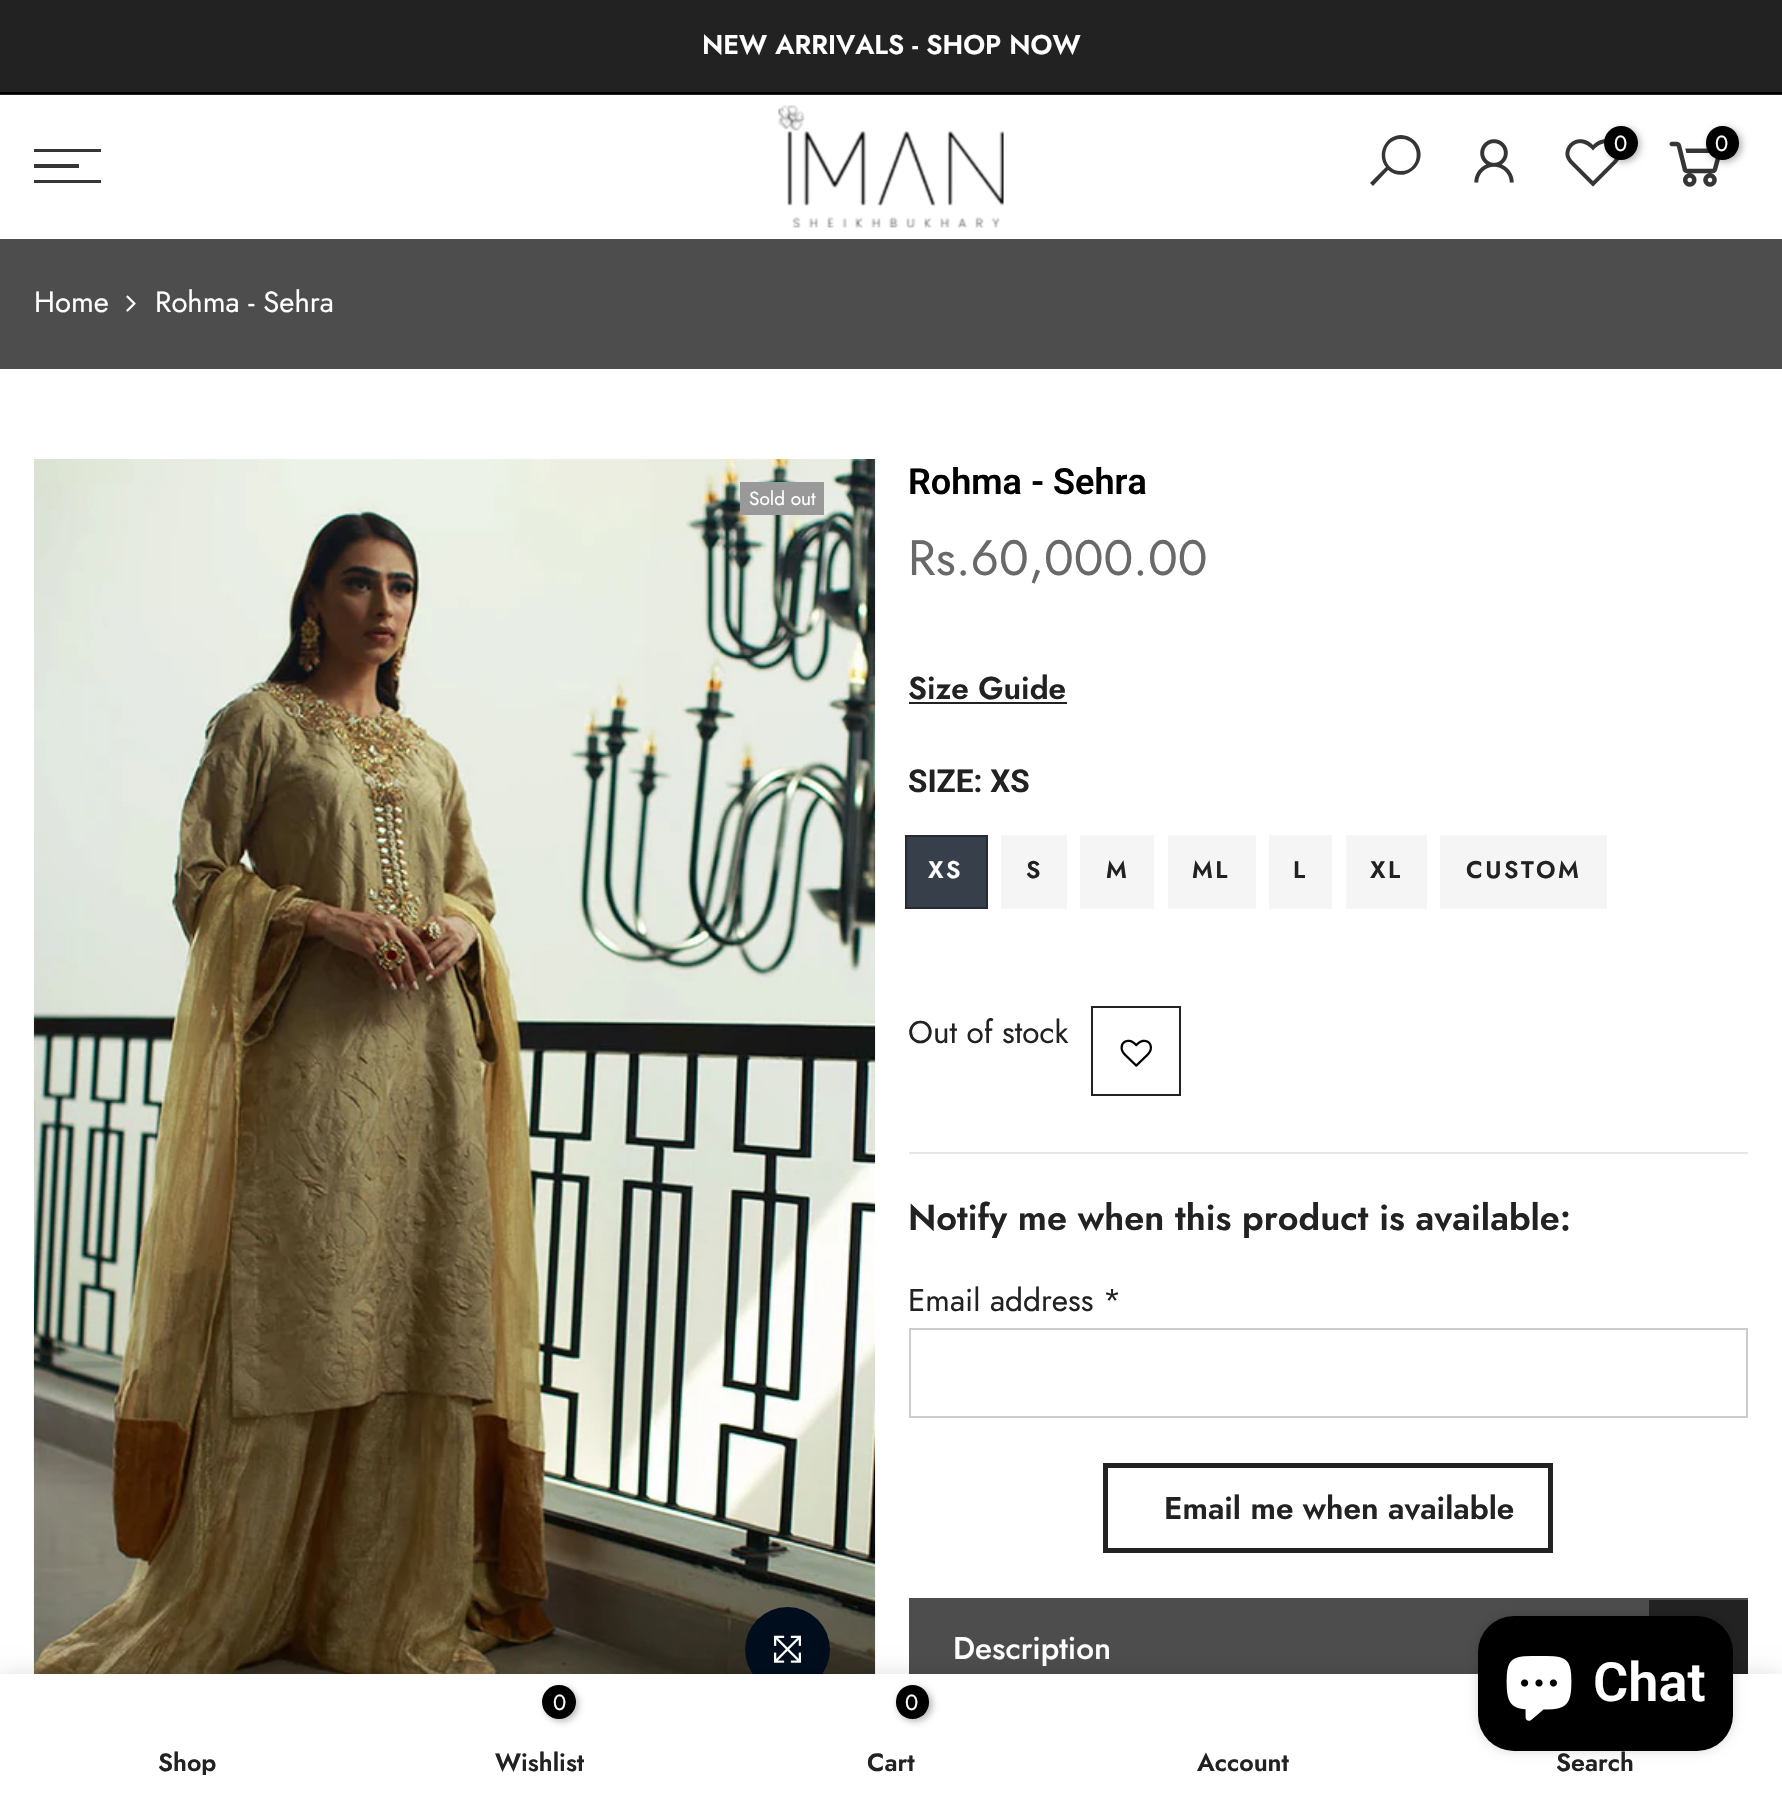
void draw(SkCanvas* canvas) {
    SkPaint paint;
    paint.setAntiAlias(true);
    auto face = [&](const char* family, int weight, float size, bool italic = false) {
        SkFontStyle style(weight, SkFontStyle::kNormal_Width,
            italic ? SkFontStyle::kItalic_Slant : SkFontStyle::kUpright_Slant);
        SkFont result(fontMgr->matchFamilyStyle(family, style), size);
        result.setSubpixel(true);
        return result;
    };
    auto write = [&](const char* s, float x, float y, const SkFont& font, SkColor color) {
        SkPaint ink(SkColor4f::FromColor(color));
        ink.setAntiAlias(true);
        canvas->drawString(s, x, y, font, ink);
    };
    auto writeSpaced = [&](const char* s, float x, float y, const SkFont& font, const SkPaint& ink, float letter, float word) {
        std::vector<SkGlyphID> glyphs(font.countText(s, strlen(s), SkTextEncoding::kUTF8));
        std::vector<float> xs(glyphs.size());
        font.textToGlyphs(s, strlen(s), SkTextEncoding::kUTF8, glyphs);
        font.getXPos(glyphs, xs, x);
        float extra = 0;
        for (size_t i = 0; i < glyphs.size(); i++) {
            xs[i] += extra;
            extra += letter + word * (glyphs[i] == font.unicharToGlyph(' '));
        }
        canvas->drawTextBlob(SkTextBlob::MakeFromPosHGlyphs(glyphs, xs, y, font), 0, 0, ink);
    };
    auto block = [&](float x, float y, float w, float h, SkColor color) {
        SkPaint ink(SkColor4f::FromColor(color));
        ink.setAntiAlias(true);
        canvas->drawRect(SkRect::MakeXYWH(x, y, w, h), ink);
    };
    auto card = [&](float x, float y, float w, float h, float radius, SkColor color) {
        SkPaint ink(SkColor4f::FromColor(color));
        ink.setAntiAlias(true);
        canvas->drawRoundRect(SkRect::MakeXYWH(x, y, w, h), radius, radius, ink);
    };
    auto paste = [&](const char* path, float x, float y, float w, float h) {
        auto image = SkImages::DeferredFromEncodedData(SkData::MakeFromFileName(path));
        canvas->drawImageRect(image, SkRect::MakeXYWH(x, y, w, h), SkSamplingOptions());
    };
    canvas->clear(SK_ColorWHITE);
    block(0, 0, 1782, 95, SkColorSetRGB(34, 34, 34));
    block(0, 92, 1782, 2, SK_ColorBLACK);
    auto kFont1 = face("Jost", 600, 27);
    write("NEW ARRIVALS - SHOP NOW", 702, 54, kFont1, SK_ColorWHITE);
    paste("pic1.png", 778, 105, 226, 123);
    paint.setColor(SkColorSetRGB(53, 53, 53));
    canvas->drawPath(SkPathBuilder().moveTo(1401, 135).cubicTo(1385, 135, 1376, 155, 1386, 167).lineTo(1370, 183).lineTo(1373, 186).lineTo(1388, 170).cubicTo(1407, 186, 1432, 159, 1415, 141).cubicTo(1411, 137, 1406, 135, 1401, 135).close().moveTo(1401, 139).cubicTo(1422, 139, 1422, 171, 1401, 171).cubicTo(1380, 171, 1380, 139, 1401, 139).close().detach(), paint);
    paste("pic2.png", 1474, 139, 40, 44);
    paste("pic3.png", 1565, 139, 55, 48);
    paint.setColor(SkColorSetARGB(77, 0, 0, 0));
    paint.setMaskFilter(SkMaskFilter::MakeBlur(kNormal_SkBlurStyle, 3.5f));
    canvas->drawRoundRect(SkRect::MakeXYWH(1607, 128, 33, 34), 16.5f, 16.5f, paint);
    paint.setMaskFilter(nullptr);
    paint.setColor(SK_ColorBLACK);
    canvas->drawCircle(1621, 143, 17, paint);
    auto kFont2 = face("Jost", 400, 22);
    write("0", 1614, 151, kFont2, SK_ColorWHITE);
    paste("pic4.png", 1669, 141, 51, 46);
    paint.setColor(SkColorSetARGB(77, 0, 0, 0));
    paint.setMaskFilter(SkMaskFilter::MakeBlur(kNormal_SkBlurStyle, 3.5f));
    canvas->drawRoundRect(SkRect::MakeXYWH(1708, 128, 34, 34), 17, 17, paint);
    paint.setMaskFilter(nullptr);
    card(1706, 126, 33, 34, 16.5f, SK_ColorBLACK);
    write("0", 1715, 151, kFont2, SK_ColorWHITE);
    block(34, 149, 67, 3, SkColorSetRGB(53, 53, 53));
    block(34, 164, 45, 4, SkColorSetRGB(53, 53, 53));
    block(34, 180, 67, 3, SkColorSetRGB(53, 53, 53));
    block(0, 239, 1782, 130, SkColorSetRGB(77, 77, 77));
    auto kFont3 = face("Jost", 400, 29.25f);
    write("Home", 34, 312, kFont3, SK_ColorWHITE);
    paste("pic5.png", 126, 295, 10, 17);
    write("Rohma - Sehra", 155, 312, kFont3, SK_ColorWHITE);
    paste("pic6.png", 33, 459, 843, 1215);
    block(740, 482, 84, 33, SkColorSetRGB(153, 153, 153));
    auto kFont4 = face("Jost", 400, 19);
    write("Sold out", 749, 505, kFont4, SK_ColorWHITE);
    paint.setColor(SkColorSetRGB(0, 13, 29));
    canvas->drawCircle(787.5f, 1649.5f, 42.5f, paint);
    paste("pic7.png", 774, 1635, 27, 28);
    auto kFont5 = face("Roboto", 600, 36);
    write("Rohma - Sehra", 908, 494, kFont5, SK_ColorBLACK);
    auto kFont6 = face("Jost", 400, 49.5f);
    write("Rs.60,000.00", 908, 575, kFont6, SkColorSetRGB(105, 105, 105));
    auto kFont7 = face("Jost", 600, 31.5f);
    write("Size Guide", 908, 699, kFont7, SkColorSetRGB(34, 34, 34));
    block(909, 702, 158, 2, SkColorSetRGB(34, 34, 34));
    auto kFont8 = face("Roboto", 700, 31.5f);
    write("SIZE: XS", 908, 792, kFont8, SkColorSetRGB(34, 34, 34));
    paint.setColor(SkColorSetRGB(55, 64, 74));
    canvas->drawRect(SkRect::MakeXYWH(906, 836, 81, 72), paint);
    paint.setStyle(SkPaint::kStroke_Style);
    paint.setStrokeWidth(2);
    paint.setColor(SkColorSetRGB(35, 45, 56));
    canvas->drawRect(SkRect::MakeXYWH(906, 836, 81, 72), paint);
    auto kFont9 = face("Jost", 600, 24);
    paint.setStyle(SkPaint::kFill_Style);
    paint.setColor(SK_ColorWHITE);
    writeSpaced("XS", 928, 878, kFont9, paint, 2.5f, 0);
    block(1001, 835, 66, 74, SkColorSetRGB(245, 245, 245));
    paint.setColor(SkColorSetRGB(34, 34, 34));
    writeSpaced("S", 1026, 878, kFont9, paint, 2.5f, 0);
    block(1080, 835, 74, 74, SkColorSetRGB(245, 245, 245));
    writeSpaced("M", 1106, 878, kFont9, paint, 2.5f, 0);
    block(1168, 835, 88, 74, SkColorSetRGB(245, 245, 245));
    writeSpaced("ML", 1192, 878, kFont9, paint, 2.5f, 0);
    block(1269, 835, 63, 74, SkColorSetRGB(245, 245, 245));
    writeSpaced("L", 1293, 878, kFont9, paint, 2.5f, 0);
    block(1346, 835, 81, 74, SkColorSetRGB(245, 245, 245));
    writeSpaced("XL", 1370, 878, kFont9, paint, 2.5f, 0);
    block(1440, 835, 167, 74, SkColorSetRGB(245, 245, 245));
    writeSpaced("CUSTOM", 1466, 878, kFont9, paint, 2.5f, 0);
    auto kFont10 = face("Jost", 400, 31.5f);
    write("Out of stock", 908, 1043, kFont10, SkColorSetRGB(34, 34, 34));
    paint.setStyle(SkPaint::kStroke_Style);
    canvas->drawRect(SkRect::MakeXYWH(1092, 1007, 88, 88), paint);
    paste("pic8.png", 1120, 1039, 32, 28);
    block(909, 1152, 839, 2, SkColorSetRGB(230, 230, 230));
    auto kFont11 = face("Jost", 600, 36);
    write("Notify me when this product is available:", 908, 1230, kFont11, SkColorSetRGB(34, 34, 34));
    write("Email address *", 908, 1311, kFont10, SkColorSetRGB(34, 34, 34));
    paint.setColor(SkColorSetRGB(204, 204, 204));
    canvas->drawRect(SkRect::MakeXYWH(910, 1329, 837, 88), paint);
    paint.setStrokeWidth(5);
    paint.setColor(SkColorSetRGB(34, 34, 34));
    canvas->drawRect(SkRect::MakeXYWH(1105.5f, 1465.5f, 445, 85), paint);
    write("Email me when available", 1164, 1519, kFont7, SkColorSetRGB(34, 34, 34));
    block(909, 1598, 839, 76, SkColorSetRGB(77, 77, 77));
    auto kFont12 = face("Jost", 500, 31.5f);
    write("Description", 953, 1659, kFont12, SK_ColorWHITE);
    block(1649, 1600, 99, 74, SkColorSetRGB(34, 34, 34));
    paint.setStyle(SkPaint::kFill_Style);
    paint.setColor(SkColorSetARGB(31, 0, 0, 0));
    paint.setMaskFilter(SkMaskFilter::MakeBlur(kNormal_SkBlurStyle, 10));
    canvas->drawRect(SkRect::MakeXYWH(0, 1674, 1782, 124), paint);
    paint.setMaskFilter(nullptr);
    block(0, 1674, 1782, 123, SK_ColorWHITE);
    paint.setColor(SkColorSetARGB(38, 0, 0, 0));
    paint.setMaskFilter(SkMaskFilter::MakeBlur(kNormal_SkBlurStyle, 5.5f));
    canvas->drawRoundRect(SkRect::MakeXYWH(1478, 1616, 255, 135), 36, 36, paint);
    paint.setMaskFilter(nullptr);
    card(1478, 1616, 255, 135, 36, SK_ColorBLACK);
    paste("pic9.png", 1506, 1656, 66, 65);
    auto kFont13 = face("Roboto", 600, 54);
    write("Chat", 1593, 1701, kFont13, SK_ColorWHITE);
    canvas->save();
    canvas->clipRect(SkRect::MakeXYWH(34, 1751, 306, 24));
    auto kFont14 = face("Jost", 600, 25);
    write("Shop", 158, 1771, kFont14, SkColorSetRGB(34, 34, 34));
    canvas->restore();
    paint.setColor(SkColorSetARGB(77, 0, 0, 0));
    paint.setMaskFilter(SkMaskFilter::MakeBlur(kNormal_SkBlurStyle, 3.5f));
    canvas->drawRoundRect(SkRect::MakeXYWH(545, 1688, 33, 33), 16.5f, 16.5f, paint);
    paint.setMaskFilter(nullptr);
    paint.setColor(SK_ColorBLACK);
    canvas->drawCircle(559, 1702, 17, paint);
    write("0", 553, 1710, kFont2, SK_ColorWHITE);
    write("Wishlist", 495, 1771, kFont14, SkColorSetRGB(34, 34, 34));
    paint.setColor(SkColorSetARGB(77, 0, 0, 0));
    paint.setMaskFilter(SkMaskFilter::MakeBlur(kNormal_SkBlurStyle, 3.5f));
    canvas->drawRoundRect(SkRect::MakeXYWH(898, 1688, 34, 33), 16.5f, 16.5f, paint);
    paint.setMaskFilter(nullptr);
    card(896, 1685, 33, 34, 16.5f, SK_ColorBLACK);
    write("0", 905, 1710, kFont2, SK_ColorWHITE);
    write("Cart", 867, 1771, kFont14, SkColorSetRGB(34, 34, 34));
    write("Account", 1197, 1771, kFont14, SkColorSetRGB(34, 34, 34));
    write("Search", 1556, 1771, kFont14, SkColorSetRGB(34, 34, 34));
}
